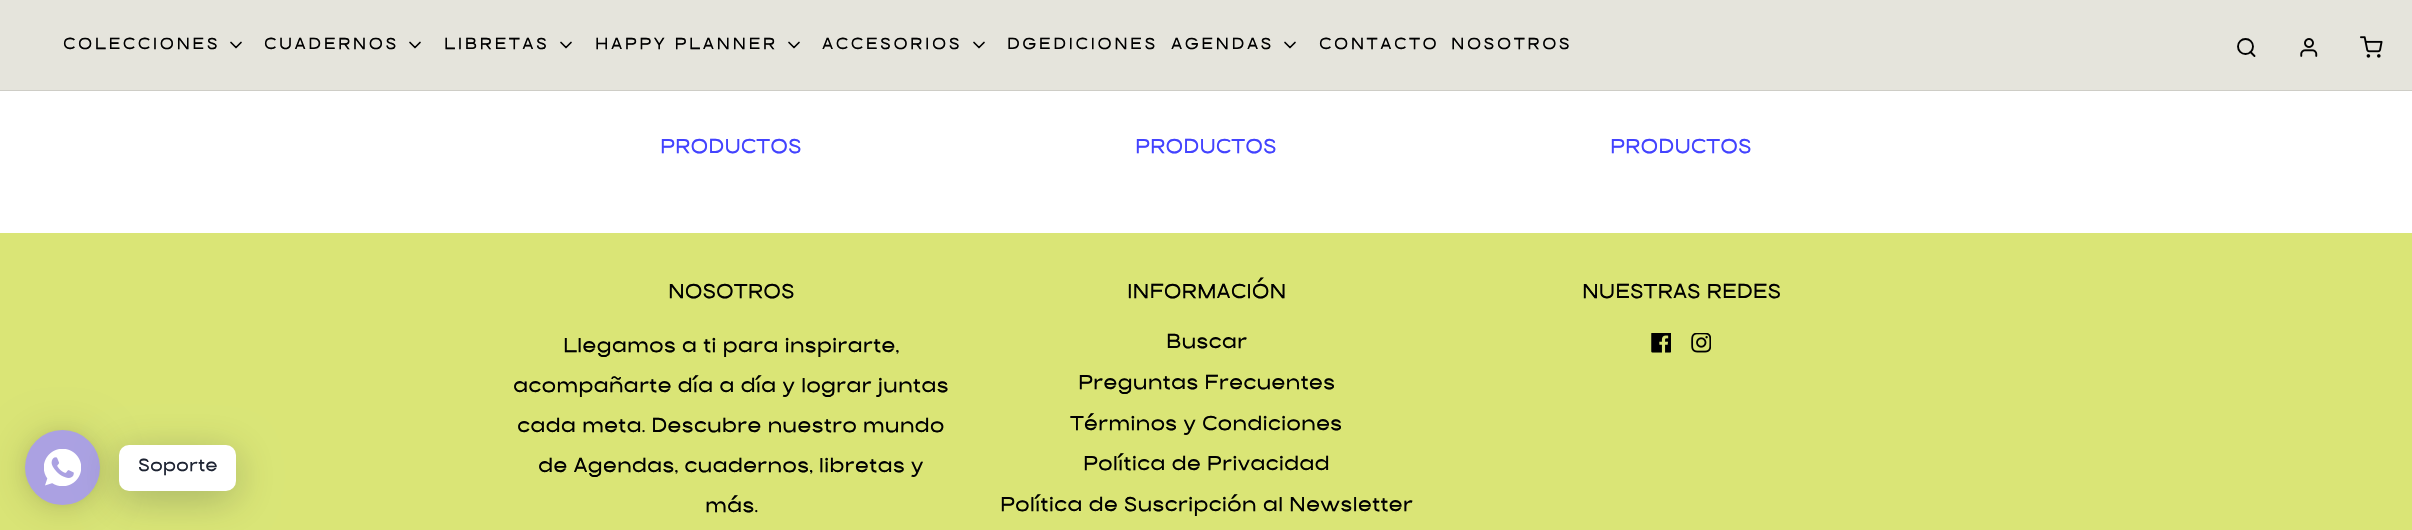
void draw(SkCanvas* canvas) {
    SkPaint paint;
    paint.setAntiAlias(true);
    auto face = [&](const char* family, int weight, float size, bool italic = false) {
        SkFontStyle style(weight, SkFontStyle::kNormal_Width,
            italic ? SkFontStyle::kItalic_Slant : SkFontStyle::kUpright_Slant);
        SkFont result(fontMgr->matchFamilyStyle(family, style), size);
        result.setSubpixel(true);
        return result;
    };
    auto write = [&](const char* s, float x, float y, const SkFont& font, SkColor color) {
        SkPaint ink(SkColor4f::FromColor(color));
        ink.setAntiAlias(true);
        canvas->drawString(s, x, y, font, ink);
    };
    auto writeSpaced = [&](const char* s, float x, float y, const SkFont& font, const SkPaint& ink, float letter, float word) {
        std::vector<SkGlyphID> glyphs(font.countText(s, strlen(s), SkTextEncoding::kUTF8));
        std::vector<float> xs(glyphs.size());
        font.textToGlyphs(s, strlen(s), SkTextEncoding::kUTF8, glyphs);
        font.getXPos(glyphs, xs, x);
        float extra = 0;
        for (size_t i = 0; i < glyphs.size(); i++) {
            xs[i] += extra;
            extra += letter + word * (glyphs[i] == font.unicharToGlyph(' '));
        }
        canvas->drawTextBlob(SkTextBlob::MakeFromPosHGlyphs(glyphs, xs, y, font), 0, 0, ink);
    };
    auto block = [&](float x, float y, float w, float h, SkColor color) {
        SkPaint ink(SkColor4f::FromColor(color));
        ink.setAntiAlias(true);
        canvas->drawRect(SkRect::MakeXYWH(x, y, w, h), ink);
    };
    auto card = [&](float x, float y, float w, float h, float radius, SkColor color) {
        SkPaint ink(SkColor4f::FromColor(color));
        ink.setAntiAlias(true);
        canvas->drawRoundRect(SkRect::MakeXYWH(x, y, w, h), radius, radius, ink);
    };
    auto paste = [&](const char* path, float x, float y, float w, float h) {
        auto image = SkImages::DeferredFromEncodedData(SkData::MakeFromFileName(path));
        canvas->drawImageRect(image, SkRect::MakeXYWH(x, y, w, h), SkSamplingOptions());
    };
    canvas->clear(SK_ColorWHITE);
    block(0, 0, 2412, 90, SkColorSetRGB(229, 228, 220));
    block(0, 90, 2412, 1, SkColorSetRGB(206, 205, 198));
    auto kFont1 = face("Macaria", 400, 16);
    paint.setColor(SK_ColorBLACK);
    writeSpaced("COLECCIONES", 63, 49, kFont1, paint, 2.5f, 0);
    paint.setStyle(SkPaint::kStroke_Style);
    paint.setStrokeWidth(1.7f);
    paint.setStrokeCap(SkPaint::kRound_Cap);
    paint.setStrokeJoin(SkPaint::kRound_Join);
    canvas->drawPath(SkPathBuilder().moveTo(231, 42.5f).lineTo(236, 47.5f).lineTo(241, 42.5f).detach(), paint);
    paint.setStyle(SkPaint::kFill_Style);
    writeSpaced("CUADERNOS", 264, 49, kFont1, paint, 2.5f, 0);
    paint.setStyle(SkPaint::kStroke_Style);
    canvas->drawPath(SkPathBuilder().moveTo(410, 42.5f).lineTo(415, 47.5f).lineTo(420, 42.5f).detach(), paint);
    paint.setStyle(SkPaint::kFill_Style);
    writeSpaced("LIBRETAS", 444, 49, kFont1, paint, 2.5f, 0);
    paint.setStyle(SkPaint::kStroke_Style);
    canvas->drawPath(SkPathBuilder().moveTo(561, 42.5f).lineTo(566, 47.5f).lineTo(571, 42.5f).detach(), paint);
    paint.setStyle(SkPaint::kFill_Style);
    writeSpaced("HAPPY PLANNER", 595, 49, kFont1, paint, 2.5f, 0);
    paint.setStyle(SkPaint::kStroke_Style);
    canvas->drawPath(SkPathBuilder().moveTo(789, 42.5f).lineTo(794, 47.5f).lineTo(799, 42.5f).detach(), paint);
    paint.setStyle(SkPaint::kFill_Style);
    writeSpaced("ACCESORIOS", 822, 49, kFont1, paint, 2.5f, 0);
    paint.setStyle(SkPaint::kStroke_Style);
    canvas->drawPath(SkPathBuilder().moveTo(974, 42.5f).lineTo(979, 47.5f).lineTo(984, 42.5f).detach(), paint);
    paint.setStyle(SkPaint::kFill_Style);
    writeSpaced("DGEDICIONES", 1007, 49, kFont1, paint, 2.5f, 0);
    writeSpaced("AGENDAS", 1171, 49, kFont1, paint, 2.5f, 0);
    paint.setStyle(SkPaint::kStroke_Style);
    canvas->drawPath(SkPathBuilder().moveTo(1285, 42.5f).lineTo(1290, 47.5f).lineTo(1295, 42.5f).detach(), paint);
    paint.setStyle(SkPaint::kFill_Style);
    writeSpaced("CONTACTO", 1319, 49, kFont1, paint, 2.5f, 0);
    writeSpaced("NOSOTROS", 1451, 49, kFont1, paint, 2.5f, 0);
    paint.setStyle(SkPaint::kStroke_Style);
    paint.setStrokeWidth(1.9f);
    paint.setStrokeCap(SkPaint::kButt_Cap);
    paint.setStrokeJoin(SkPaint::kMiter_Join);
    canvas->drawCircle(2245.5f, 46.5f, 7.5f, paint);
    paint.setStrokeCap(SkPaint::kRound_Cap);
    paint.setStrokeJoin(SkPaint::kRound_Join);
    canvas->drawPath(SkPathBuilder().moveTo(2254.5f, 56).lineTo(2250.5f, 52).detach(), paint);
    paste("pic1.png", 2300, 38, 18, 19);
    paste("pic2.png", 2360, 36, 23, 22);
    auto kFont2 = face("Macaria", 400, 20);
    write("PRODUCTOS", 660, 153, kFont2, SkColorSetRGB(67, 67, 255));
    write("PRODUCTOS", 1135, 153, kFont2, SkColorSetRGB(67, 67, 255));
    write("PRODUCTOS", 1610, 153, kFont2, SkColorSetRGB(67, 67, 255));
    block(0, 233, 2412, 297, SkColorSetRGB(218, 229, 118));
    write("NOSOTROS", 668, 298, kFont2, SK_ColorBLACK);
    write("Llegamos a ti para inspirarte,", 563, 352, kFont2, SK_ColorBLACK);
    write("acompañarte día a día y lograr juntas", 513, 392, kFont2, SK_ColorBLACK);
    write("cada meta. Descubre nuestro mundo", 517, 432, kFont2, SK_ColorBLACK);
    write("de Agendas, cuadernos, libretas y", 538, 472, kFont2, SK_ColorBLACK);
    write("más.", 705, 512, kFont2, SK_ColorBLACK);
    write("INFORMACIÓN", 1127, 298, kFont2, SK_ColorBLACK);
    write("Buscar", 1166, 348, kFont2, SK_ColorBLACK);
    write("Preguntas Frecuentes", 1078, 389, kFont2, SK_ColorBLACK);
    write("Términos y Condiciones", 1070, 430, kFont2, SK_ColorBLACK);
    write("Política de Privacidad", 1083, 470, kFont2, SK_ColorBLACK);
    write("Política de Suscripción al Newsletter", 1000, 511, kFont2, SK_ColorBLACK);
    write("NUESTRAS REDES", 1582, 298, kFont2, SK_ColorBLACK);
    paste("pic3.png", 1651, 333, 20, 20);
    paste("pic4.png", 1691, 333, 20, 20);
    paint.setStyle(SkPaint::kFill_Style);
    paint.setColor(SkColorSetARGB(41, 0, 0, 0));
    paint.setMaskFilter(SkMaskFilter::MakeBlur(kNormal_SkBlurStyle, 20));
    canvas->drawRoundRect(SkRect::MakeXYWH(25, 433, 75, 75), 37.5f, 37.5f, paint);
    paint.setMaskFilter(nullptr);
    paint.setColor(SkColorSetARGB(15, 0, 0, 0));
    paint.setMaskFilter(SkMaskFilter::MakeBlur(kNormal_SkBlurStyle, 4));
    canvas->drawRoundRect(SkRect::MakeXYWH(25, 431, 75, 75), 37.5f, 37.5f, paint);
    paint.setMaskFilter(nullptr);
    paint.setColor(SkColorSetRGB(171, 161, 226));
    canvas->drawCircle(62.5f, 467.5f, 37.5f, paint);
    paint.setColor(SkColorSetARGB(61, 0, 18, 46));
    paint.setMaskFilter(SkMaskFilter::MakeBlur(kNormal_SkBlurStyle, 20));
    canvas->drawRoundRect(SkRect::MakeXYWH(119, 453, 117, 46), 10, 10, paint);
    paint.setMaskFilter(nullptr);
    paste("pic5.png", 44, 449, 37, 37);
    card(119, 445, 117, 46, 10, SK_ColorWHITE);
    auto kFont3 = face("Macaria", 400, 17.5f);
    write("Soporte", 138, 471, kFont3, SkColorSetRGB(30, 36, 51));
}
